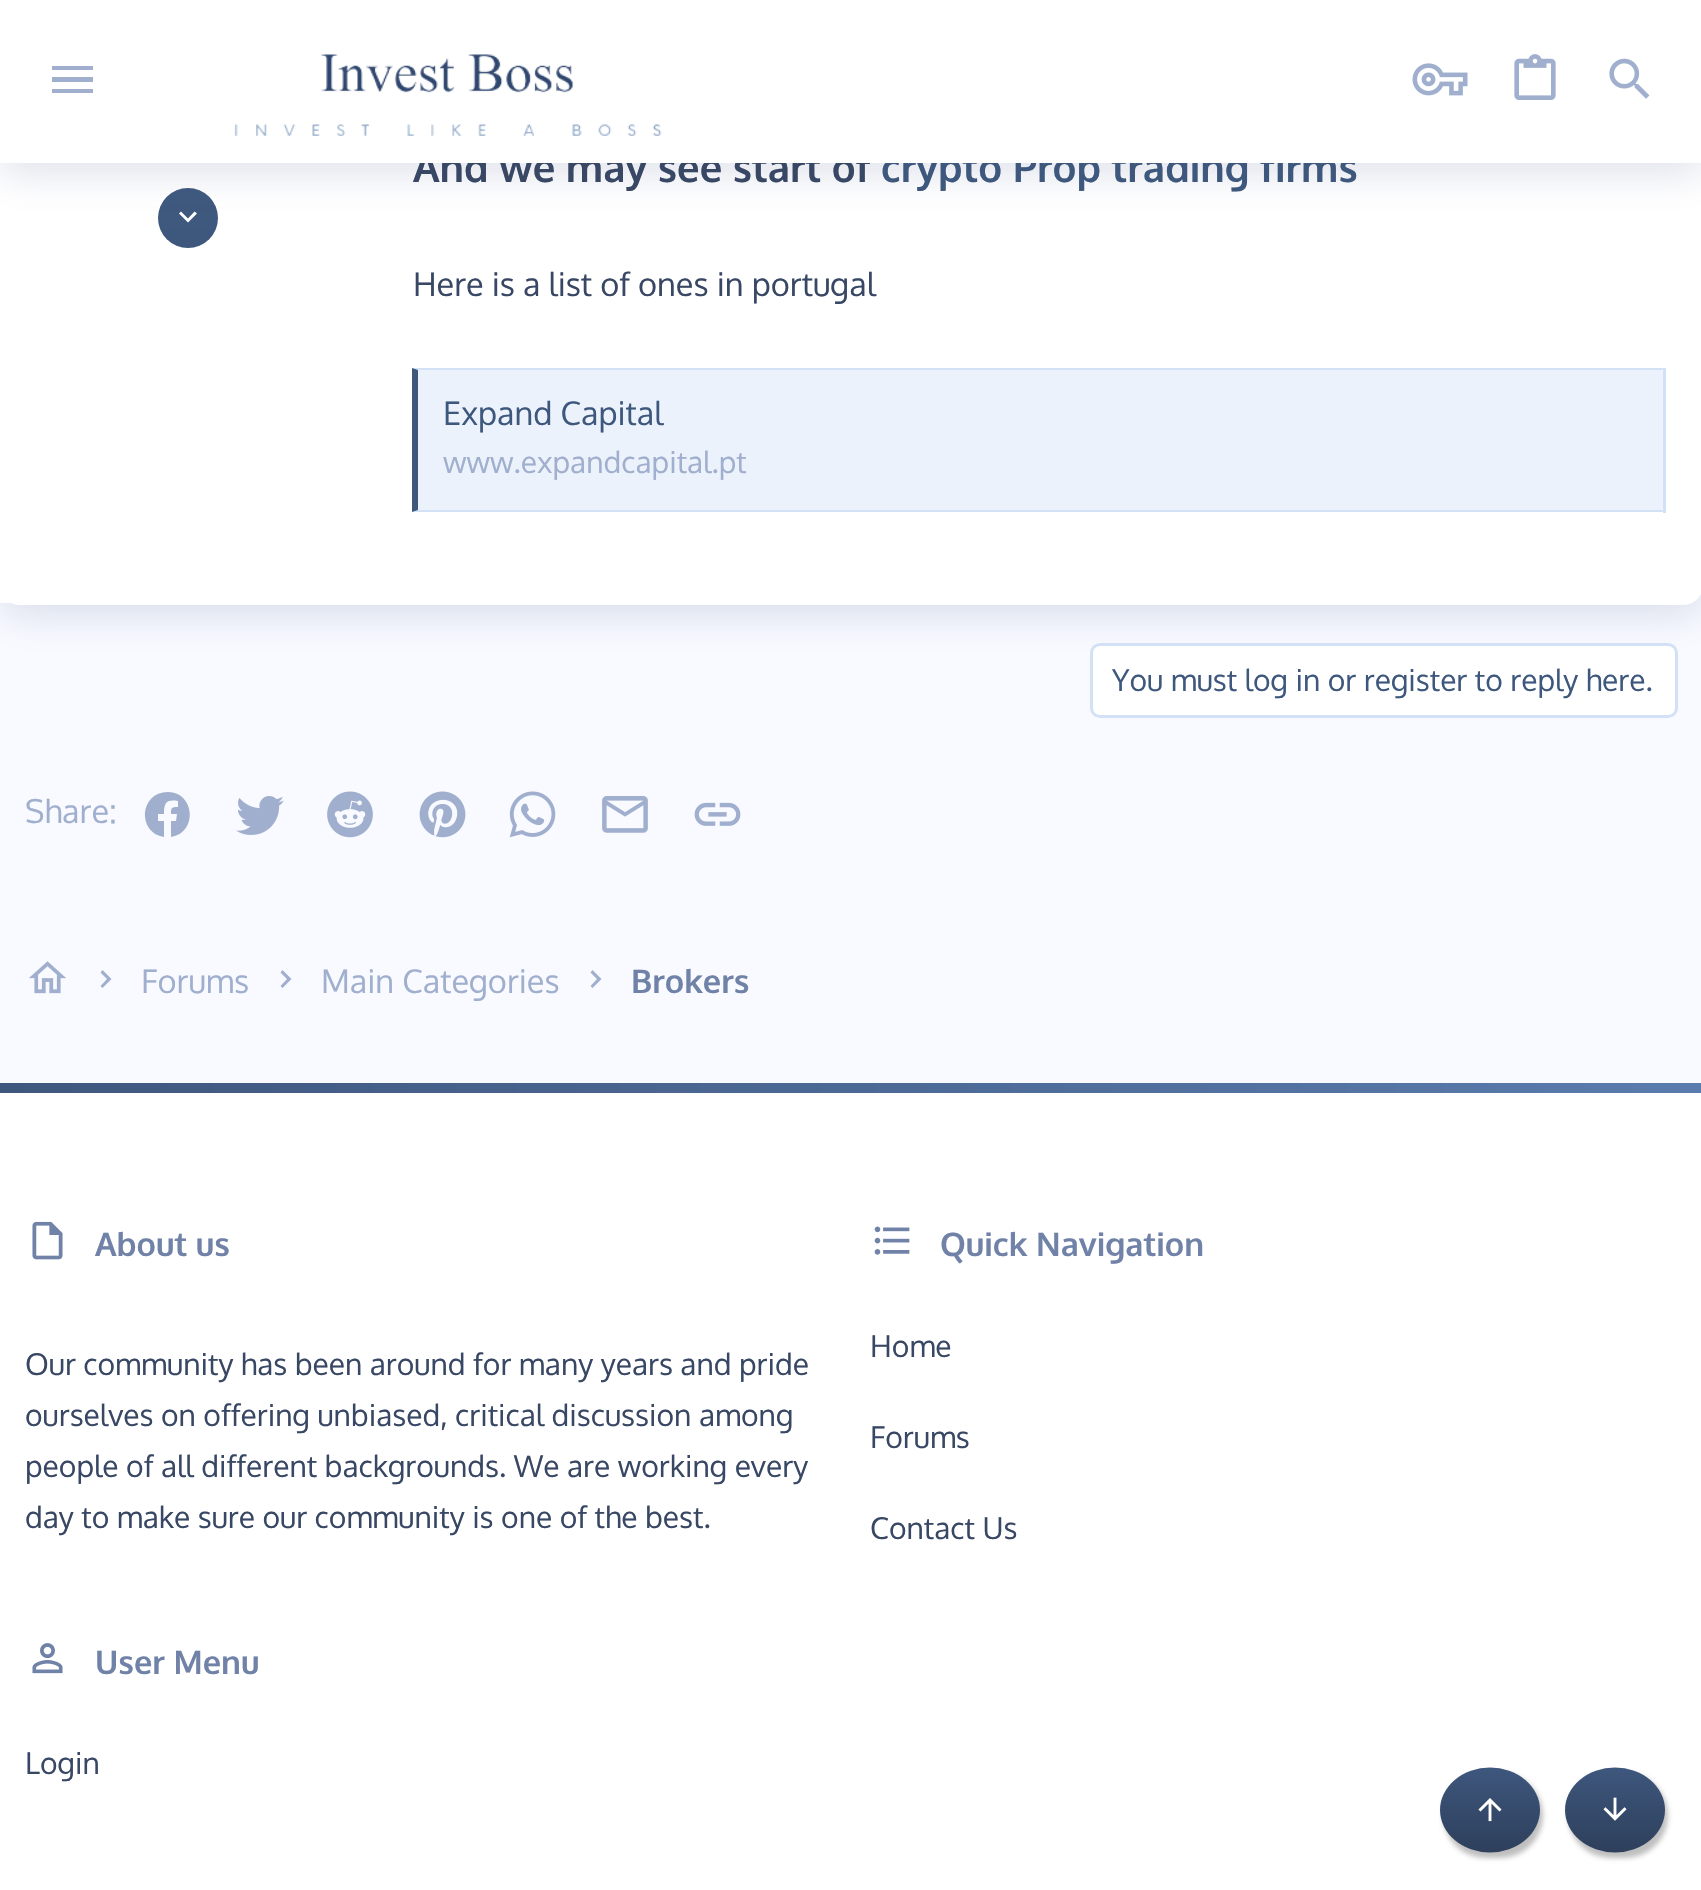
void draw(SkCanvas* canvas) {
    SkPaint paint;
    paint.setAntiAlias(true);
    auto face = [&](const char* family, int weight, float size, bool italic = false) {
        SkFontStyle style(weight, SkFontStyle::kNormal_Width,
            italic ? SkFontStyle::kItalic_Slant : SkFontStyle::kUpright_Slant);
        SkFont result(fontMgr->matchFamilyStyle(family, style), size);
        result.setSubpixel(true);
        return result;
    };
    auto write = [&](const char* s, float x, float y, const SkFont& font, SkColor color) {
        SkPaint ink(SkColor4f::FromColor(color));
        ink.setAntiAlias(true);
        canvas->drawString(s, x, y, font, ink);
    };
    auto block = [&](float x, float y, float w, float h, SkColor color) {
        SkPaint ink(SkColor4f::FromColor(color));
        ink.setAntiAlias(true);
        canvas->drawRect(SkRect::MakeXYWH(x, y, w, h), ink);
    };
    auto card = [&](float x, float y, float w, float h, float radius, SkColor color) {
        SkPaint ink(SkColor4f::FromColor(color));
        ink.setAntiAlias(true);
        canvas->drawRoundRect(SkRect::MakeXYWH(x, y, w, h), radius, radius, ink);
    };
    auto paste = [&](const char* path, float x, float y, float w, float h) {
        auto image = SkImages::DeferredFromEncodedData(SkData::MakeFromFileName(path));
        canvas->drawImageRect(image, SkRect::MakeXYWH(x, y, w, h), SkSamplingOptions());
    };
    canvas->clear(SkColorSetRGB(248, 250, 255));
    paint.setColor(SkColorSetARGB(51, 88, 106, 153));
    paint.setMaskFilter(SkMaskFilter::MakeBlur(kNormal_SkBlurStyle, 19));
    canvas->drawRoundRect(SkRect::MakeXYWH(0, -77, 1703, 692), 20, 20, paint);
    paint.setMaskFilter(nullptr);
    card(0, -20, 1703, 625, 20, SK_ColorWHITE);
    paint.setColor(SkColorSetRGB(62, 87, 125));
    canvas->drawCircle(188, 218, 30, paint);
    paint.setColor(SK_ColorWHITE);
    canvas->drawPath(SkPathBuilder().moveTo(181, 211.5f).lineTo(188, 218.5f).lineTo(194.5f, 211.5f).lineTo(197, 213.5f).lineTo(188, 222.5f).lineTo(179, 213.5f).close().detach(), paint);
    paint.setColor(SkColorSetARGB(51, 88, 106, 153));
    paint.setMaskFilter(SkMaskFilter::MakeBlur(kNormal_SkBlurStyle, 19));
    canvas->drawRect(SkRect::MakeXYWH(0, 10, 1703, 163), paint);
    paint.setMaskFilter(nullptr);
    auto kFont1 = face("Oxygen", 700, 40);
    write("And we may see start of", 413, 182, kFont1, SkColorSetRGB(56, 71, 100));
    write("crypto Prop trading firms", 881, 182, kFont1, SkColorSetRGB(62, 87, 125));
    block(0, 0, 1701, 163, SK_ColorWHITE);
    paint.setColor(SkColorSetRGB(160, 175, 206));
    canvas->drawPath(SkPathBuilder().moveTo(52, 66).lineTo(93, 66).lineTo(93, 70).lineTo(52, 70).close().moveTo(52, 77).lineTo(93, 77).lineTo(93, 82).lineTo(52, 82).close().moveTo(52, 89).lineTo(93, 89).lineTo(93, 93).lineTo(52, 93).close().detach(), paint);
    paste("pic1.png", 234, 54, 428, 82);
    paste("pic2.png", 1412, 63, 56, 33);
    paste("pic3.png", 1514, 54, 42, 46);
    paste("pic4.png", 1609, 58, 41, 41);
    block(0, 587, 11, 16, SK_ColorWHITE);
    auto kFont2 = face("Oxygen", 400, 32.5f);
    write("Here is a list of ones in portugal", 413, 296, kFont2, SkColorSetRGB(56, 71, 100));
    block(418, 370, 1245, 140, SkColorSetRGB(236, 242, 251));
    paint.setColor(SkColorSetRGB(211, 225, 246));
    canvas->drawPath(SkPathBuilder().moveTo(412, 368).lineTo(1665, 368).lineTo(1662, 370).lineTo(418, 370).close().detach(), paint);
    block(1663, 368, 3, 145, SkColorSetRGB(211, 225, 246));
    canvas->drawPath(SkPathBuilder().moveTo(1665, 512).lineTo(412, 512).lineTo(418, 510).lineTo(1662, 510).close().detach(), paint);
    paint.setColor(SkColorSetRGB(62, 87, 125));
    canvas->drawPath(SkPathBuilder().moveTo(412, 512).lineTo(412, 368).lineTo(418, 370).lineTo(418, 510).close().detach(), paint);
    write("Expand Capital", 443, 425, kFont2, SkColorSetRGB(62, 87, 125));
    auto kFont3 = face("Oxygen", 400, 30);
    write("www.expandcapital.pt", 443, 473, kFont3, SkColorSetRGB(160, 175, 206));
    paint.setColor(SK_ColorWHITE);
    canvas->drawRoundRect(SkRect::MakeXYWH(1091.5f, 644.5f, 585, 72), 8.5f, 8.5f, paint);
    paint.setStyle(SkPaint::kStroke_Style);
    paint.setStrokeWidth(3);
    paint.setColor(SkColorSetRGB(211, 225, 246));
    canvas->drawRoundRect(SkRect::MakeXYWH(1091.5f, 644.5f, 585, 72), 8.5f, 8.5f, paint);
    write("You must log in or register to reply here.", 1112, 691, kFont3, SkColorSetRGB(62, 87, 125));
    write("Share:", 25, 823, kFont2, SkColorSetRGB(160, 175, 206));
    paint.setStyle(SkPaint::kFill_Style);
    paint.setColor(SkColorSetRGB(160, 175, 206));
    canvas->drawPath(SkPathBuilder().moveTo(168, 792).cubicTo(139, 792, 137, 833, 164, 837).lineTo(164, 821).lineTo(158, 821).lineTo(158, 814).lineTo(164, 814).cubicTo(164, 803, 166, 799, 178, 801).lineTo(178, 807).cubicTo(171, 807, 171, 808, 171, 814).lineTo(177, 814).lineTo(176, 821).lineTo(171, 821).lineTo(171, 837).cubicTo(198, 833, 195, 792, 168, 792).close().detach(), paint);
    paste("pic5.png", 236, 796, 48, 39);
    paste("pic6.png", 327, 791, 46, 47);
    paste("pic7.png", 419, 791, 47, 47);
    paste("pic8.png", 509, 791, 47, 47);
    paste("pic9.png", 602, 796, 46, 37);
    paste("pic10.png", 694, 802, 47, 24);
    paste("pic11.png", 29, 961, 37, 33);
    canvas->drawPath(SkPathBuilder().moveTo(100.5f, 986).lineTo(107, 979).lineTo(100.5f, 972.5f).lineTo(102.5f, 970).lineTo(111.5f, 979).lineTo(102.5f, 988).close().detach(), paint);
    write("Forums", 141, 993, kFont2, SkColorSetRGB(160, 175, 206));
    canvas->drawPath(SkPathBuilder().moveTo(280.5f, 986).lineTo(287, 979).lineTo(280.5f, 972.5f).lineTo(282.5f, 970).lineTo(291.5f, 979).lineTo(282.5f, 988).close().detach(), paint);
    write("Main Categories", 321, 993, kFont2, SkColorSetRGB(160, 175, 206));
    canvas->drawPath(SkPathBuilder().moveTo(590.5f, 986).lineTo(597, 979).lineTo(590.5f, 972.5f).lineTo(592.5f, 970).lineTo(601.5f, 979).lineTo(592.5f, 988).close().detach(), paint);
    auto kFont4 = face("Oxygen", 700, 32.5f);
    write("Brokers", 631, 993, kFont4, SkColorSetRGB(112, 130, 167));
    block(0, 1093, 1701, 797, SK_ColorWHITE);
    {
        const SkColor colors[] = {SkColorSetRGB(62, 87, 125), SkColorSetRGB(90, 123, 173)};
        const float stops[] = {0, 1};
        const SkPoint ends[] = {{0, 1087}, {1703, 1088}};
        paint.setShader(SkGradientShader::MakeLinear(ends, colors, stops, 2, SkTileMode::kClamp));
        paint.setAlpha(255);
    }
    canvas->drawRect(SkRect::MakeXYWH(0, 1083, 1701, 10), paint);
    paste("pic12.png", 32, 1221, 31, 39);
    write("About us", 95, 1256, kFont4, SkColorSetRGB(112, 130, 167));
    write("Our community has been around for many years and pride", 25, 1375, kFont3, SkColorSetRGB(56, 71, 100));
    write("ourselves on offering unbiased, critical discussion among", 25, 1426, kFont3, SkColorSetRGB(56, 71, 100));
    write("people of all different backgrounds. We are working every", 25, 1477, kFont3, SkColorSetRGB(56, 71, 100));
    write("day to make sure our community is one of the best.", 25, 1528, kFont3, SkColorSetRGB(56, 71, 100));
    paste("pic13.png", 874, 1226, 36, 29);
    write("Quick Navigation", 940, 1256, kFont4, SkColorSetRGB(112, 130, 167));
    write("Home", 870, 1357, kFont3, SkColorSetRGB(56, 71, 100));
    write("Forums", 870, 1448, kFont3, SkColorSetRGB(56, 71, 100));
    write("Contact Us", 870, 1539, kFont3, SkColorSetRGB(56, 71, 100));
    paste("pic14.png", 32, 1643, 31, 31);
    write("User Menu", 95, 1674, kFont4, SkColorSetRGB(112, 130, 167));
    write("Login", 25, 1774, kFont3, SkColorSetRGB(56, 71, 100));
    paint.setShader(nullptr);
    paint.setColor(SkColorSetARGB(64, 0, 0, 0));
    paint.setMaskFilter(SkMaskFilter::MakeBlur(kNormal_SkBlurStyle, 2.5f));
    canvas->drawRoundRect(SkRect::MakeXYWH(1443, 1773, 100, 85), 42.5f, 42.5f, paint);
    paint.setMaskFilter(nullptr);
    {
        const SkColor colors[] = {SkColorSetRGB(62, 87, 125), SkColorSetRGB(45, 63, 91)};
        const float stops[] = {0, 1};
        const SkPoint ends[] = {{1490, 1768}, {1490, 1853}};
        paint.setShader(SkGradientShader::MakeLinear(ends, colors, stops, 2, SkTileMode::kClamp));
        paint.setAlpha(255);
    }
    canvas->drawOval(SkRect::MakeXYWH(1440, 1767.5f, 100, 85), paint);
    paste("pic15.png", 1478, 1798, 24, 24);
    paint.setShader(nullptr);
    paint.setColor(SkColorSetARGB(64, 0, 0, 0));
    paint.setMaskFilter(SkMaskFilter::MakeBlur(kNormal_SkBlurStyle, 2.5f));
    canvas->drawRoundRect(SkRect::MakeXYWH(1568, 1773, 100, 85), 42.5f, 42.5f, paint);
    paint.setMaskFilter(nullptr);
    {
        const SkColor colors[] = {SkColorSetRGB(62, 87, 125), SkColorSetRGB(45, 63, 91)};
        const float stops[] = {0, 1};
        const SkPoint ends[] = {{1615, 1768}, {1615, 1853}};
        paint.setShader(SkGradientShader::MakeLinear(ends, colors, stops, 2, SkTileMode::kClamp));
        paint.setAlpha(255);
    }
    canvas->drawOval(SkRect::MakeXYWH(1565, 1767.5f, 100, 85), paint);
    paste("pic16.png", 1603, 1797, 24, 24);
}
